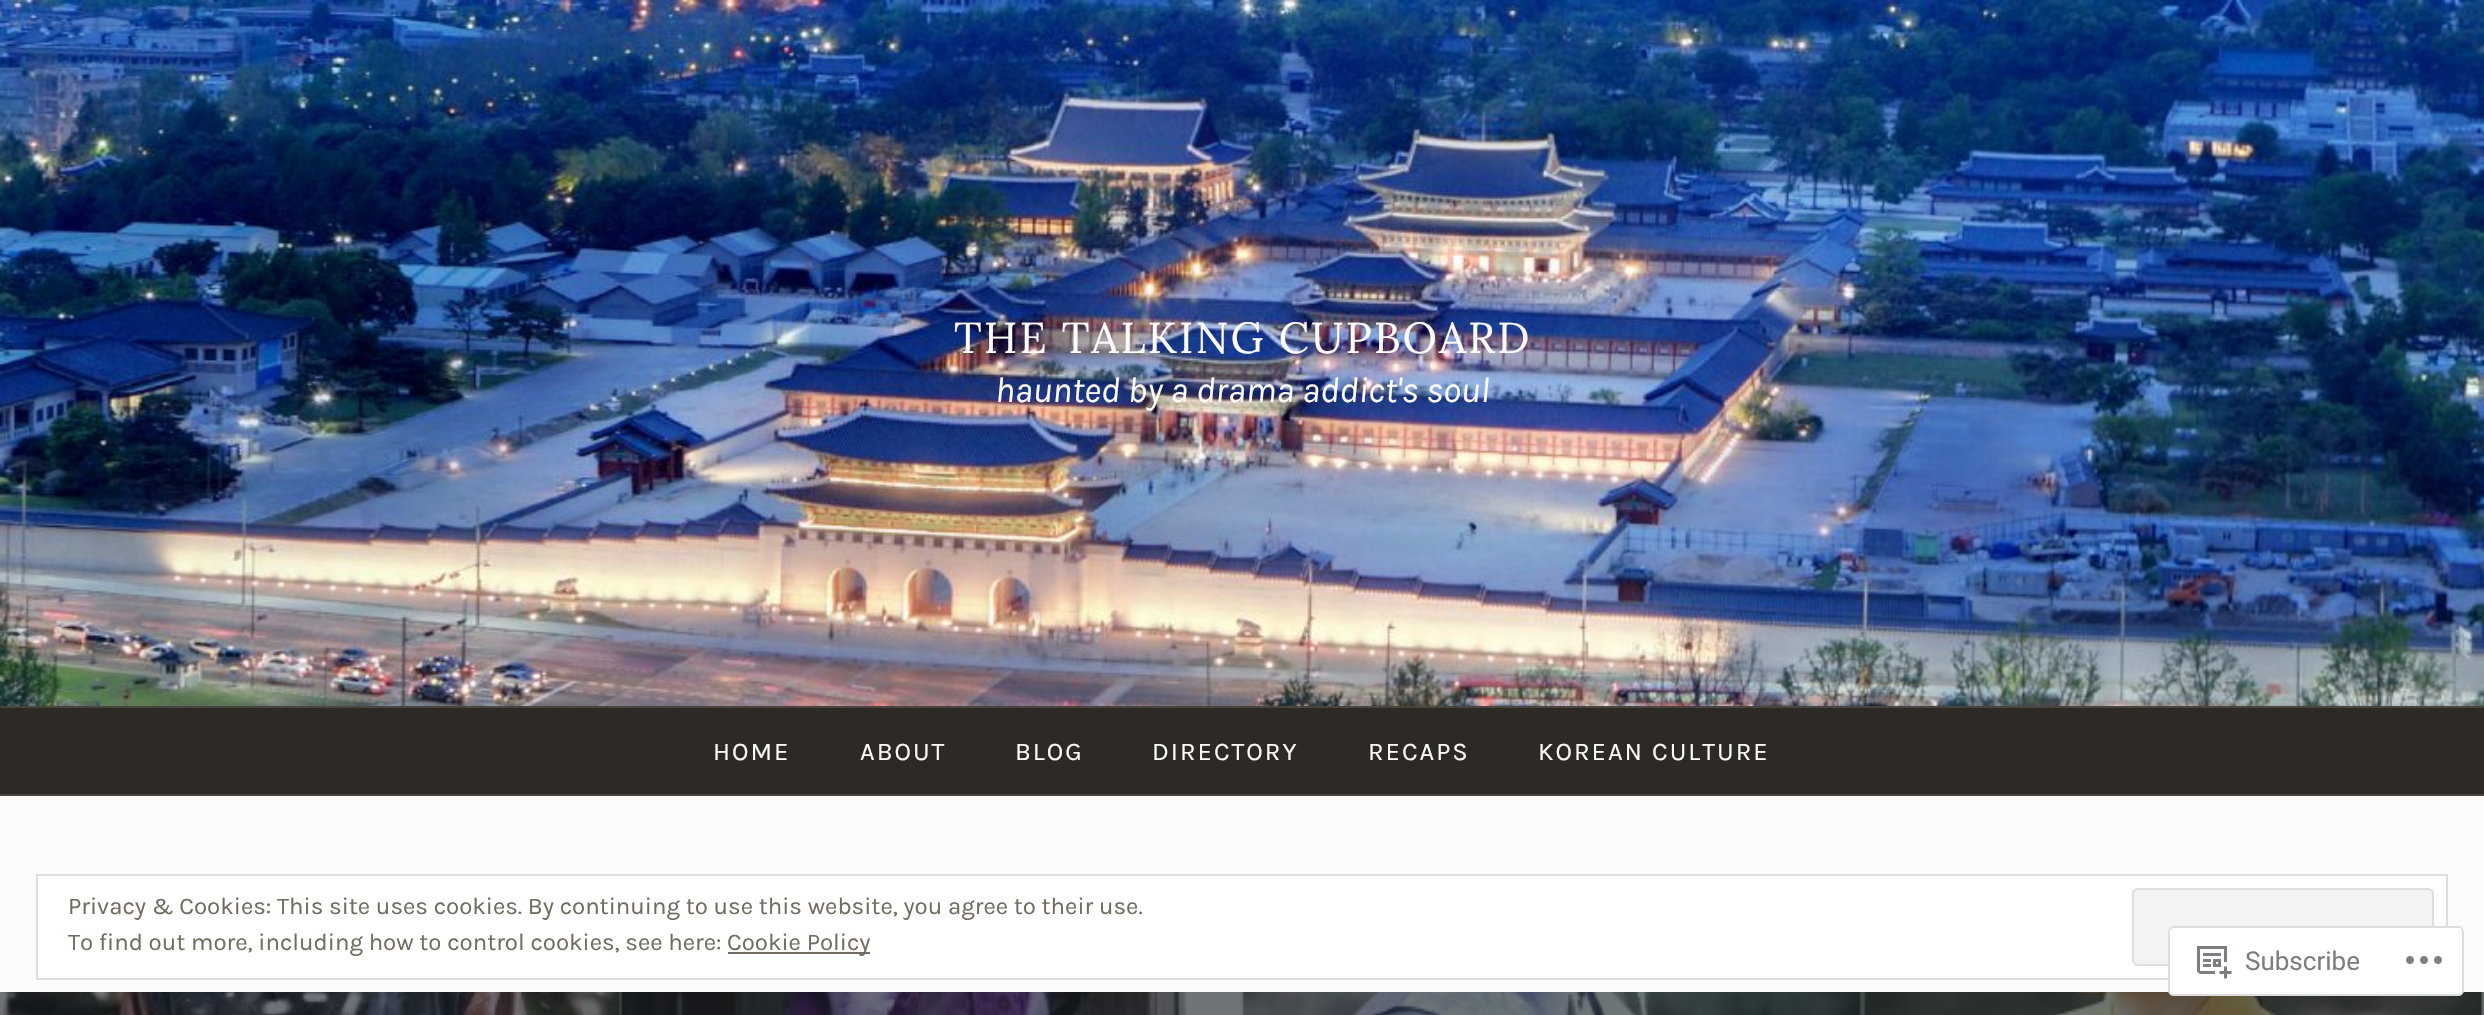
void draw(SkCanvas* canvas) {
    SkPaint paint;
    paint.setAntiAlias(true);
    auto face = [&](const char* family, int weight, float size, bool italic = false) {
        SkFontStyle style(weight, SkFontStyle::kNormal_Width,
            italic ? SkFontStyle::kItalic_Slant : SkFontStyle::kUpright_Slant);
        SkFont result(fontMgr->matchFamilyStyle(family, style), size);
        result.setSubpixel(true);
        return result;
    };
    auto write = [&](const char* s, float x, float y, const SkFont& font, SkColor color) {
        SkPaint ink(SkColor4f::FromColor(color));
        ink.setAntiAlias(true);
        canvas->drawString(s, x, y, font, ink);
    };
    auto writeSpaced = [&](const char* s, float x, float y, const SkFont& font, const SkPaint& ink, float letter, float word) {
        std::vector<SkGlyphID> glyphs(font.countText(s, strlen(s), SkTextEncoding::kUTF8));
        std::vector<float> xs(glyphs.size());
        font.textToGlyphs(s, strlen(s), SkTextEncoding::kUTF8, glyphs);
        font.getXPos(glyphs, xs, x);
        float extra = 0;
        for (size_t i = 0; i < glyphs.size(); i++) {
            xs[i] += extra;
            extra += letter + word * (glyphs[i] == font.unicharToGlyph(' '));
        }
        canvas->drawTextBlob(SkTextBlob::MakeFromPosHGlyphs(glyphs, xs, y, font), 0, 0, ink);
    };
    auto block = [&](float x, float y, float w, float h, SkColor color) {
        SkPaint ink(SkColor4f::FromColor(color));
        ink.setAntiAlias(true);
        canvas->drawRect(SkRect::MakeXYWH(x, y, w, h), ink);
    };
    auto card = [&](float x, float y, float w, float h, float radius, SkColor color) {
        SkPaint ink(SkColor4f::FromColor(color));
        ink.setAntiAlias(true);
        canvas->drawRoundRect(SkRect::MakeXYWH(x, y, w, h), radius, radius, ink);
    };
    auto paste = [&](const char* path, float x, float y, float w, float h) {
        auto image = SkImages::DeferredFromEncodedData(SkData::MakeFromFileName(path));
        canvas->drawImageRect(image, SkRect::MakeXYWH(x, y, w, h), SkSamplingOptions());
    };
    canvas->clear(SkColorSetRGB(252, 251, 250));
    paste("pic1.png", 0, 0, 2484, 706);
    auto kFont1 = face("Lora", 400, 43.25f);
    paint.setColor(SkColorSetRGB(252, 251, 249));
    writeSpaced("THE TALKING CUPBOARD", 954, 353, kFont1, paint, 2, 0);
    auto kFont2 = face("Karla", 400, 36, true);
    write("haunted by a drama addict's soul", 995, 402, kFont2, SkColorSetRGB(252, 251, 249));
    block(0, 708, 2484, 86, SkColorSetRGB(45, 42, 38));
    block(0, 706, 2484, 2, SkColorSetRGB(73, 68, 61));
    block(0, 794, 2484, 2, SkColorSetRGB(73, 68, 61));
    auto kFont3 = face("Karla", 400, 25.5f);
    writeSpaced("HOME", 713, 760, kFont3, paint, 2, 0);
    writeSpaced("ABOUT", 860, 760, kFont3, paint, 2, 0);
    writeSpaced("BLOG", 1015, 760, kFont3, paint, 2, 0);
    writeSpaced("DIRECTORY", 1152, 760, kFont3, paint, 2, 0);
    writeSpaced("RECAPS", 1368, 760, kFont3, paint, 2, 0);
    writeSpaced("KOREAN CULTURE", 1538, 760, kFont3, paint, 2, 0);
    block(0, 992, 2484, 23, SkColorSetRGB(31, 43, 48));
    paste("pic2.png", 0, 992, 2484, 23);
    paint.setColor(SK_ColorWHITE);
    canvas->drawRect(SkRect::MakeXYWH(37, 875, 2410, 104), paint);
    paint.setStyle(SkPaint::kStroke_Style);
    paint.setStrokeWidth(2);
    paint.setColor(SkColorSetRGB(222, 222, 222));
    canvas->drawRect(SkRect::MakeXYWH(37, 875, 2410, 104), paint);
    auto kFont4 = face("Karla", 400, 24);
    write("Privacy & Cookies: This site uses cookies. By continuing to use this website, you agree to their use.", 68, 914, kFont4, SkColorSetRGB(114, 107, 96));
    paint.setStyle(SkPaint::kFill_Style);
    paint.setColor(SkColorSetRGB(243, 243, 243));
    canvas->drawRoundRect(SkRect::MakeXYWH(2133, 889, 300, 76), 5, 5, paint);
    paint.setStyle(SkPaint::kStroke_Style);
    paint.setColor(SkColorSetRGB(222, 222, 222));
    canvas->drawRoundRect(SkRect::MakeXYWH(2133, 889, 300, 76), 5, 5, paint);
    write("To find out more, including how to control cookies, see here:", 68, 950, kFont4, SkColorSetRGB(114, 107, 96));
    block(728, 952, 142, 2, SkColorSetRGB(114, 107, 96));
    write("Cookie Policy", 727, 950, kFont4, SkColorSetRGB(114, 107, 96));
    card(2168, 926, 296, 70, 6, SkColorSetARGB(250, 255, 255, 255));
    paint.setColor(SkColorSetARGB(250, 220, 220, 222));
    canvas->drawRoundRect(SkRect::MakeXYWH(2169, 927, 294, 68), 5, 5, paint);
    paste("pic3.png", 2197, 946, 35, 33);
    auto kFont5 = face("Roboto", 400, 26);
    write("Subscribe", 2245, 970, kFont5, SkColorSetRGB(123, 127, 132));
    paste("pic4.png", 2406, 956, 36, 8);
}
